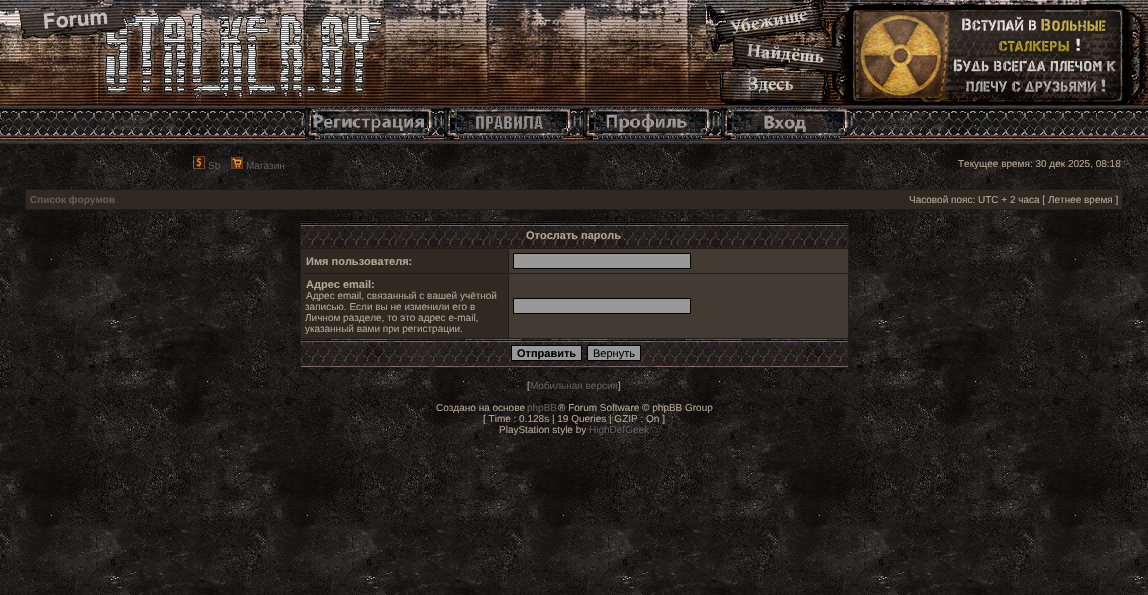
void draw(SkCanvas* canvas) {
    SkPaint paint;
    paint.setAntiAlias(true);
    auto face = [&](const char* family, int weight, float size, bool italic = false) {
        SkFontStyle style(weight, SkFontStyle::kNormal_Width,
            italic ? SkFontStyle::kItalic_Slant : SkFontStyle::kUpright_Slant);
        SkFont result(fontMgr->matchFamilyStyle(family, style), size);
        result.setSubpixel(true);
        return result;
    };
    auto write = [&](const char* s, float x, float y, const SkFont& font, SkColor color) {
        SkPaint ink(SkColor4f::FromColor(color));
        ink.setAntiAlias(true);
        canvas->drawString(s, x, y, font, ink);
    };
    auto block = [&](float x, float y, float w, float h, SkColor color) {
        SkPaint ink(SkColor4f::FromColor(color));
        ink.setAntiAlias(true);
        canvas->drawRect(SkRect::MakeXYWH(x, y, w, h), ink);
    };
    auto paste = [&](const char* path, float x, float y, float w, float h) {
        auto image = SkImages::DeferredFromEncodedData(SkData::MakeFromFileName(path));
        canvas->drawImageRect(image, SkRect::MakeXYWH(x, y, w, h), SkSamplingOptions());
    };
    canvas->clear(SK_ColorWHITE);
    paste("pic1.png", 0, 111, 1148, 484);
    paste("pic2.png", 19, 0, 687, 105);
    paste("pic3.png", 0, 0, 384, 105);
    paste("pic4.png", 706, 0, 442, 105);
    paste("pic5.png", 0, 105, 56, 39);
    paste("pic6.png", 56, 105, 1040, 39);
    paste("pic7.png", 301, 107, 136, 33);
    paste("pic8.png", 440, 107, 136, 33);
    paste("pic9.png", 579, 107, 136, 33);
    paste("pic10.png", 717, 107, 136, 33);
    paste("pic11.png", 1096, 105, 52, 39);
    paste("pic12.png", 193, 156, 12, 13);
    auto kFont1 = face("Liberation Sans", 400, 10);
    write("Sb", 208, 169, kFont1, SkColorSetRGB(96, 91, 88));
    paste("pic13.png", 231, 157, 12, 12);
    write("Магазин", 246, 169, kFont1, SkColorSetRGB(96, 91, 88));
    write("Текущее время: 30 дек 2025, 08:18", 958, 167, kFont1, SkColorSetRGB(179, 164, 145));
    block(25, 189, 1098, 21, SkColorSetRGB(32, 28, 23));
    block(26, 190, 1096, 19, SkColorSetRGB(47, 41, 34));
    auto kFont2 = face("Liberation Sans", 700, 10);
    write("Список форумов", 30, 203, kFont2, SkColorSetRGB(96, 91, 88));
    write("Часовой пояс: UTC + 2 часа [ Летнее время ]", 909, 203, kFont1, SkColorSetRGB(179, 164, 145));
    block(300, 221, 549, 147, SkColorSetRGB(32, 28, 23));
    paste("pic14.png", 301, 222, 547, 26);
    auto kFont3 = face("Liberation Sans", 700, 11);
    write("Отослать пароль", 526, 239, kFont3, SkColorSetRGB(179, 164, 145));
    block(301, 249, 207, 24, SkColorSetRGB(47, 41, 34));
    write("Имя пользователя:", 306, 265, kFont3, SkColorSetRGB(179, 164, 145));
    block(509, 249, 339, 24, SkColorSetRGB(67, 58, 49));
    paint.setColor(SkColorSetRGB(153, 153, 153));
    canvas->drawRect(SkRect::MakeXYWH(513.5f, 253.5f, 177, 15), paint);
    paint.setStyle(SkPaint::kStroke_Style);
    paint.setStrokeWidth(1);
    paint.setColor(SK_ColorBLACK);
    canvas->drawRect(SkRect::MakeXYWH(513.5f, 253.5f, 177, 15), paint);
    block(301, 274, 207, 64, SkColorSetRGB(47, 41, 34));
    write("Адрес email:", 306, 288, kFont3, SkColorSetRGB(179, 164, 145));
    write("Адрес email, связанный с вашей учётной", 306, 299, kFont1, SkColorSetRGB(179, 164, 145));
    write("записью. Если вы не изменили его в", 305, 310, kFont1, SkColorSetRGB(179, 164, 145));
    write("Личном разделе, то это адрес e-mail,", 305, 321, kFont1, SkColorSetRGB(179, 164, 145));
    write("указанный вами при регистрации.", 305, 332, kFont1, SkColorSetRGB(179, 164, 145));
    block(509, 274, 339, 64, SkColorSetRGB(67, 58, 49));
    paint.setStyle(SkPaint::kFill_Style);
    paint.setColor(SkColorSetRGB(153, 153, 153));
    canvas->drawRect(SkRect::MakeXYWH(513.5f, 298.5f, 177, 15), paint);
    paint.setStyle(SkPaint::kStroke_Style);
    paint.setColor(SK_ColorBLACK);
    canvas->drawRect(SkRect::MakeXYWH(513.5f, 298.5f, 177, 15), paint);
    paste("pic15.png", 301, 339, 547, 28);
    paint.setStyle(SkPaint::kFill_Style);
    paint.setColor(SkColorSetRGB(153, 153, 153));
    canvas->drawRect(SkRect::MakeXYWH(511.5f, 345.5f, 70, 15), paint);
    paint.setStyle(SkPaint::kStroke_Style);
    paint.setColor(SK_ColorBLACK);
    canvas->drawRect(SkRect::MakeXYWH(511.5f, 345.5f, 70, 15), paint);
    write("Отправить", 517, 357, kFont3, SK_ColorBLACK);
    paint.setStyle(SkPaint::kFill_Style);
    paint.setColor(SkColorSetRGB(153, 153, 153));
    canvas->drawRect(SkRect::MakeXYWH(587.5f, 345.5f, 53, 15), paint);
    paint.setStyle(SkPaint::kStroke_Style);
    paint.setColor(SK_ColorBLACK);
    canvas->drawRect(SkRect::MakeXYWH(587.5f, 345.5f, 53, 15), paint);
    auto kFont4 = face("Liberation Sans", 400, 11);
    write("Вернуть", 593, 357, kFont4, SK_ColorBLACK);
    write("[", 527, 389, kFont1, SkColorSetRGB(179, 164, 145));
    write("Мобильная версия", 530, 389, kFont1, SkColorSetRGB(96, 91, 88));
    write("]", 618, 389, kFont1, SkColorSetRGB(179, 164, 145));
    write("Создано на основе", 436, 411, kFont1, SkColorSetRGB(179, 164, 145));
    write("phpBB", 527, 411, kFont1, SkColorSetRGB(96, 91, 88));
    write("® Forum Software © phpBB Group", 558, 411, kFont1, SkColorSetRGB(179, 164, 145));
    write("[ Time : 0.128s | 19 Queries | GZIP : On ]", 483, 422, kFont1, SkColorSetRGB(179, 164, 145));
    write("PlayStation style by", 499, 433, kFont1, SkColorSetRGB(179, 164, 145));
    write("HighDefGeek", 589, 433, kFont1, SkColorSetRGB(96, 91, 88));
}
